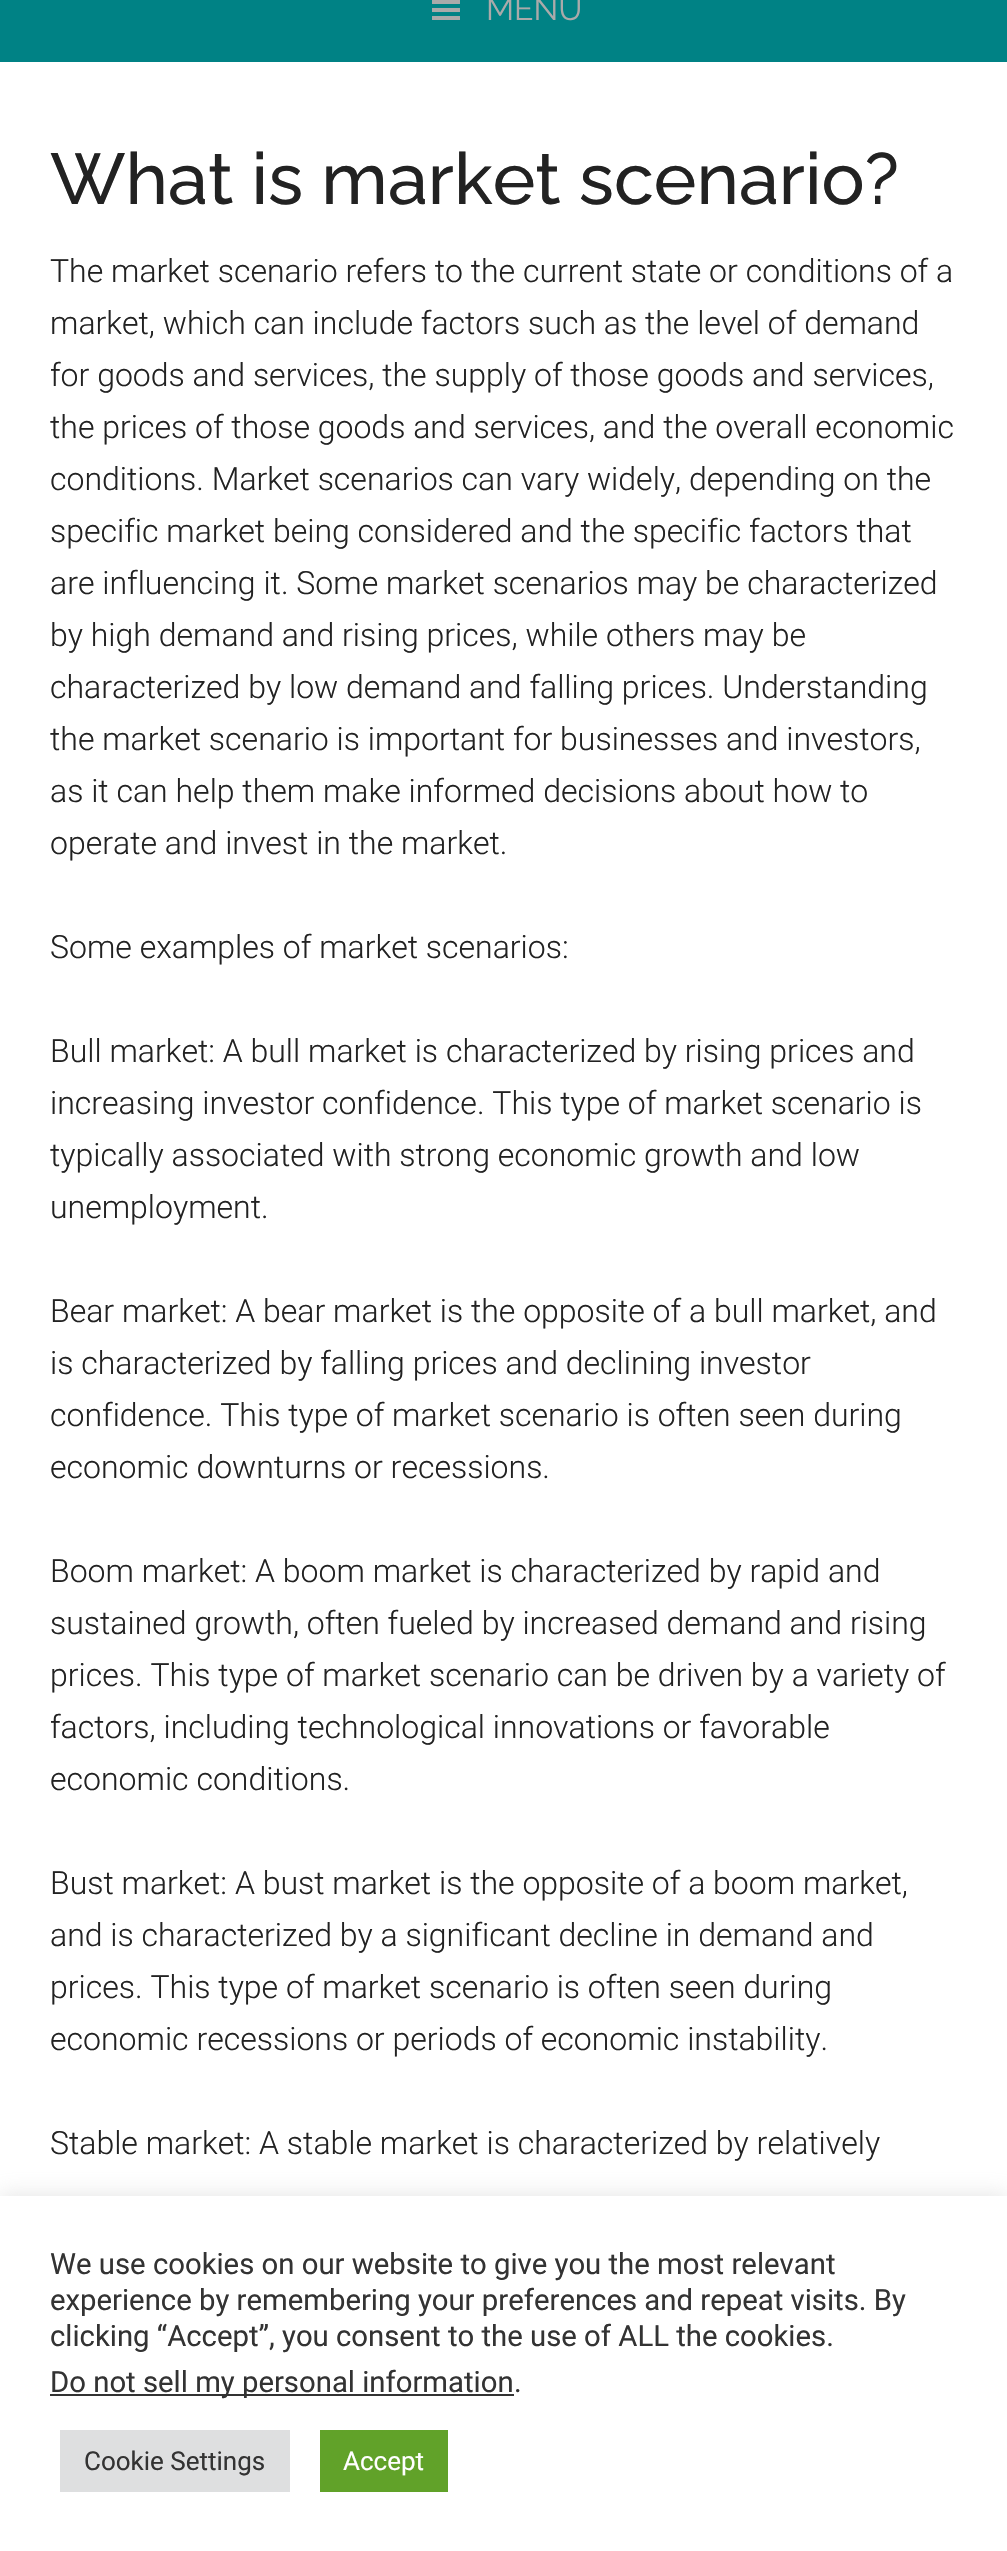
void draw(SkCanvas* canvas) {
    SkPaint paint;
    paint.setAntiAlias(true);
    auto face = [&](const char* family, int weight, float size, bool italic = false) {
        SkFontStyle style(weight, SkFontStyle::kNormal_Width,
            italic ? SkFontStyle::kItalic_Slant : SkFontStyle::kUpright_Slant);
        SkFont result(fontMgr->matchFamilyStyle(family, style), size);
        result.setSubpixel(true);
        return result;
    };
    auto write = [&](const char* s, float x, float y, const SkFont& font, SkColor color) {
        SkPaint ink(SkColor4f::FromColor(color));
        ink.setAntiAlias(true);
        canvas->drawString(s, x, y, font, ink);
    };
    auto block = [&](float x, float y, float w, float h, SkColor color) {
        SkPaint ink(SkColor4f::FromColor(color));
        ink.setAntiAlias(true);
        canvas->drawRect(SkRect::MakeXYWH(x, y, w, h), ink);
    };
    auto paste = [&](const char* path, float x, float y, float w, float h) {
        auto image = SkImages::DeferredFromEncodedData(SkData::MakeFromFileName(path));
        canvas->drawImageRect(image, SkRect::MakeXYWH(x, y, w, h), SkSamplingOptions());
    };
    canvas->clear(SK_ColorWHITE);
    block(0, 0, 1007, 62, SkColorSetRGB(0, 130, 133));
    paste("pic1.png", 432, 0, 28, 20);
    auto kFont1 = face("Raleway", 400, 32);
    write("MENU", 486, 20, kFont1, SkColorSetRGB(170, 170, 170));
    auto kFont2 = face("Raleway", 500, 72);
    write("What is market scenario?", 50, 204, kFont2, SkColorSetRGB(34, 34, 34));
    auto kFont3 = face("Roboto", 300, 32);
    write("The market scenario refers to the current state or conditions of a", 50, 282, kFont3, SkColorSetRGB(34, 34, 34));
    write("market, which can include factors such as the level of demand", 50, 334, kFont3, SkColorSetRGB(34, 34, 34));
    write("for goods and services, the supply of those goods and services,", 50, 386, kFont3, SkColorSetRGB(34, 34, 34));
    write("the prices of those goods and services, and the overall economic", 50, 438, kFont3, SkColorSetRGB(34, 34, 34));
    write("conditions. Market scenarios can vary widely, depending on the", 50, 490, kFont3, SkColorSetRGB(34, 34, 34));
    write("specific market being considered and the specific factors that", 50, 542, kFont3, SkColorSetRGB(34, 34, 34));
    write("are influencing it. Some market scenarios may be characterized", 50, 594, kFont3, SkColorSetRGB(34, 34, 34));
    write("by high demand and rising prices, while others may be", 50, 646, kFont3, SkColorSetRGB(34, 34, 34));
    write("characterized by low demand and falling prices. Understanding", 50, 698, kFont3, SkColorSetRGB(34, 34, 34));
    write("the market scenario is important for businesses and investors,", 50, 750, kFont3, SkColorSetRGB(34, 34, 34));
    write("as it can help them make informed decisions about how to", 50, 802, kFont3, SkColorSetRGB(34, 34, 34));
    write("operate and invest in the market.", 50, 854, kFont3, SkColorSetRGB(34, 34, 34));
    write("Some examples of market scenarios:", 50, 958, kFont3, SkColorSetRGB(34, 34, 34));
    write("Bull market: A bull market is characterized by rising prices and", 50, 1062, kFont3, SkColorSetRGB(34, 34, 34));
    write("increasing investor confidence. This type of market scenario is", 50, 1114, kFont3, SkColorSetRGB(34, 34, 34));
    write("typically associated with strong economic growth and low", 50, 1166, kFont3, SkColorSetRGB(34, 34, 34));
    write("unemployment.", 50, 1218, kFont3, SkColorSetRGB(34, 34, 34));
    write("Bear market: A bear market is the opposite of a bull market, and", 50, 1322, kFont3, SkColorSetRGB(34, 34, 34));
    write("is characterized by falling prices and declining investor", 50, 1374, kFont3, SkColorSetRGB(34, 34, 34));
    write("confidence. This type of market scenario is often seen during", 50, 1426, kFont3, SkColorSetRGB(34, 34, 34));
    write("economic downturns or recessions.", 50, 1478, kFont3, SkColorSetRGB(34, 34, 34));
    write("Boom market: A boom market is characterized by rapid and", 50, 1582, kFont3, SkColorSetRGB(34, 34, 34));
    write("sustained growth, often fueled by increased demand and rising", 50, 1634, kFont3, SkColorSetRGB(34, 34, 34));
    write("prices. This type of market scenario can be driven by a variety of", 50, 1686, kFont3, SkColorSetRGB(34, 34, 34));
    write("factors, including technological innovations or favorable", 50, 1738, kFont3, SkColorSetRGB(34, 34, 34));
    write("economic conditions.", 50, 1790, kFont3, SkColorSetRGB(34, 34, 34));
    write("Bust market: A bust market is the opposite of a boom market,", 50, 1894, kFont3, SkColorSetRGB(34, 34, 34));
    write("and is characterized by a significant decline in demand and", 50, 1946, kFont3, SkColorSetRGB(34, 34, 34));
    write("prices. This type of market scenario is often seen during", 50, 1998, kFont3, SkColorSetRGB(34, 34, 34));
    write("economic recessions or periods of economic instability.", 50, 2050, kFont3, SkColorSetRGB(34, 34, 34));
    write("Stable market: A stable market is characterized by relatively", 50, 2154, kFont3, SkColorSetRGB(34, 34, 34));
    paint.setColor(SkColorSetARGB(77, 172, 171, 171));
    paint.setMaskFilter(SkMaskFilter::MakeBlur(kNormal_SkBlurStyle, 10));
    canvas->drawRect(SkRect::MakeXYWH(0, 2194, 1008, 356), paint);
    paint.setMaskFilter(nullptr);
    block(0, 2196, 1007, 355, SK_ColorWHITE);
    auto kFont4 = face("Roboto", 400, 29.3f);
    write("We use cookies on our website to give you the most relevant", 50, 2274, kFont4, SkColorSetRGB(51, 51, 51));
    write("experience by remembering your preferences and repeat visits. By", 50, 2310, kFont4, SkColorSetRGB(51, 51, 51));
    write("clicking “Accept”, you consent to the use of ALL the cookies.", 50, 2346, kFont4, SkColorSetRGB(51, 51, 51));
    block(50, 2394, 464, 2, SkColorSetRGB(51, 51, 51));
    write("Do not sell my personal information", 50, 2392, kFont4, SkColorSetRGB(51, 51, 51));
    write(".", 514, 2392, kFont4, SkColorSetRGB(51, 51, 51));
    block(60, 2430, 230, 62, SkColorSetRGB(222, 223, 224));
    auto kFont5 = face("Roboto", 400, 26);
    write("Cookie Settings", 84, 2470, kFont5, SkColorSetRGB(51, 51, 51));
    block(320, 2430, 128, 62, SkColorSetRGB(97, 162, 41));
    write("Accept", 343, 2470, kFont5, SK_ColorWHITE);
}
